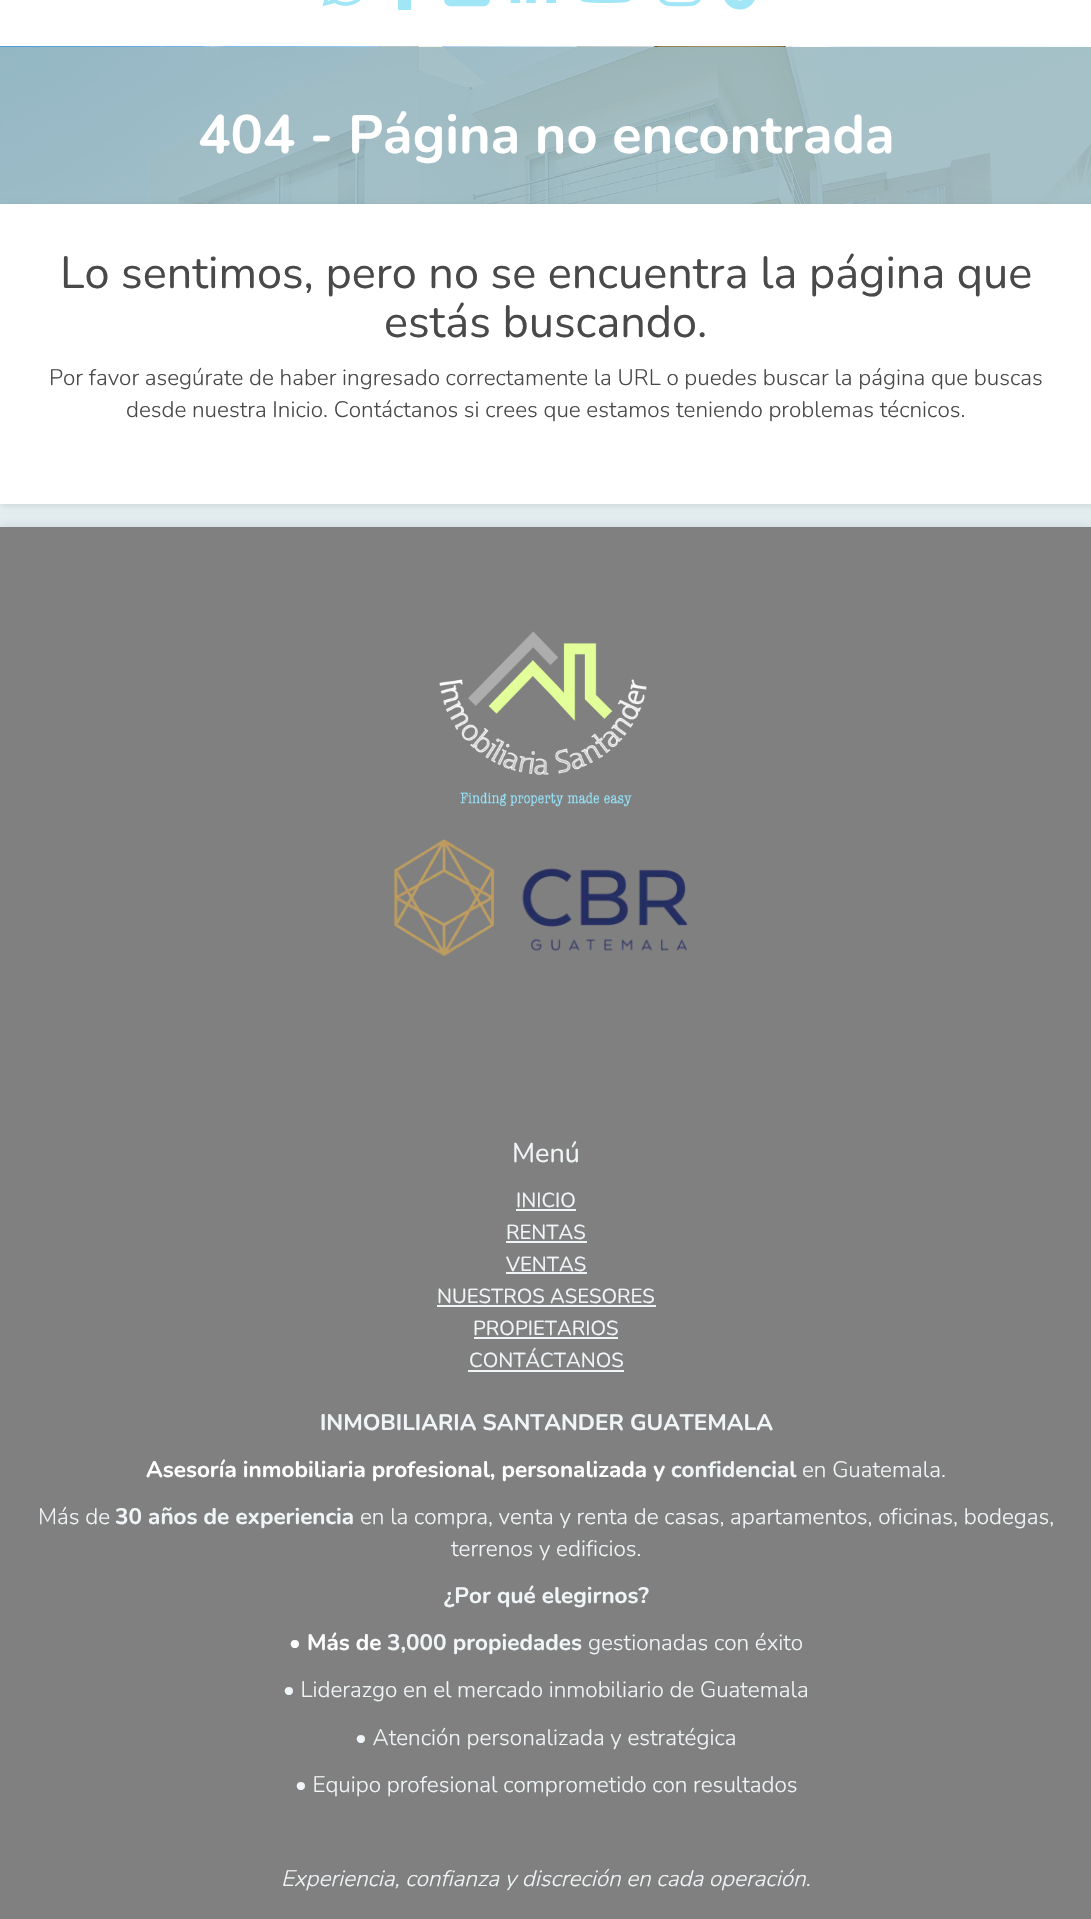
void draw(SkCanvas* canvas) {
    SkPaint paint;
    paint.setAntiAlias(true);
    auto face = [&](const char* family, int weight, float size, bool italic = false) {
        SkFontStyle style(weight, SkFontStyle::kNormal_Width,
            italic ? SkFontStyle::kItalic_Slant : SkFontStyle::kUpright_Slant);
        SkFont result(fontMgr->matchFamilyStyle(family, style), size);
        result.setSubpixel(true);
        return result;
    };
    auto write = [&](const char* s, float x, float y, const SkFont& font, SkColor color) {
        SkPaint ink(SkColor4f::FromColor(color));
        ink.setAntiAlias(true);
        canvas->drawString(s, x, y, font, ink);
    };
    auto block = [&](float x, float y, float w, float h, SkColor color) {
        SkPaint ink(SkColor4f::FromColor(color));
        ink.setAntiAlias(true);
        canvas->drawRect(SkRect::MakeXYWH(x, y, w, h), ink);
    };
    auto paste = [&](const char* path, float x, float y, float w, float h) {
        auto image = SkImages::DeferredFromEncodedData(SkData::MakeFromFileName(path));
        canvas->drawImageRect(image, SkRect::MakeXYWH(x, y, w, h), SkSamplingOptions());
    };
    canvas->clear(SkColorSetRGB(228, 238, 240));
    block(0, 0, 1091, 46, SK_ColorWHITE);
    paste("pic1.png", 322, 0, 39, 7);
    block(398, 0, 13, 10, SkColorSetRGB(161, 230, 247));
    paste("pic2.png", 444, 0, 46, 7);
    paste("pic3.png", 510, 0, 46, 3);
    paste("pic4.png", 580, 0, 51, 3);
    paste("pic5.png", 659, 0, 42, 7);
    paste("pic6.png", 724, 0, 31, 10);
    paste("pic7.png", 0, 46, 1091, 158);
    auto kFont1 = face("Nunito", 700, 54);
    write("404 - Página no encontrada", 198, 153, kFont1, SK_ColorWHITE);
    paint.setColor(SkColorSetARGB(26, 0, 0, 0));
    paint.setMaskFilter(SkMaskFilter::MakeBlur(kNormal_SkBlurStyle, 3));
    canvas->drawRect(SkRect::MakeXYWH(2, 206, 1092, 300), paint);
    paint.setMaskFilter(nullptr);
    block(0, 204, 1091, 300, SK_ColorWHITE);
    auto kFont2 = face("Nunito", 400, 45);
    write("Lo sentimos, pero no se encuentra la página que", 60, 288, kFont2, SkColorSetRGB(73, 73, 73));
    write("estás buscando.", 384, 337, kFont2, SkColorSetRGB(73, 73, 73));
    auto kFont3 = face("Nunito", 300, 22.5f);
    write("Por favor asegúrate de haber ingresado correctamente la URL o puedes buscar la página que buscas", 49, 385, kFont3, SkColorSetRGB(73, 73, 73));
    write("desde nuestra Inicio. Contáctanos si crees que estamos teniendo problemas técnicos.", 126, 417, kFont3, SkColorSetRGB(73, 73, 73));
    paint.setColor(SkColorSetARGB(20, 0, 0, 0));
    paint.setMaskFilter(SkMaskFilter::MakeBlur(kNormal_SkBlurStyle, 4.5f));
    canvas->drawRect(SkRect::MakeXYWH(0, 525, 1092, 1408), paint);
    paint.setMaskFilter(nullptr);
    block(0, 527, 1091, 1392, SkColorSetRGB(128, 128, 128));
    paste("pic8.png", 439, 631, 208, 176);
    paste("pic9.png", 394, 839, 294, 118);
    auto kFont4 = face("Nunito", 400, 27);
    write("Menú", 512, 1162, kFont4, SkColorSetRGB(240, 245, 247));
    auto kFont5 = face("Nunito", 400, 20.25f);
    write("INICIO", 516, 1207, kFont5, SkColorSetRGB(240, 245, 247));
    block(516, 1209, 60, 2, SkColorSetRGB(240, 245, 247));
    write("RENTAS", 506, 1239, kFont5, SkColorSetRGB(240, 245, 247));
    block(506, 1241, 81, 2, SkColorSetRGB(240, 245, 247));
    write("VENTAS", 506, 1271, kFont5, SkColorSetRGB(240, 245, 247));
    block(506, 1272, 81, 2, SkColorSetRGB(240, 245, 247));
    write("NUESTROS ASESORES", 437, 1303, kFont5, SkColorSetRGB(240, 245, 247));
    block(437, 1305, 219, 2, SkColorSetRGB(240, 245, 247));
    write("PROPIETARIOS", 473, 1335, kFont5, SkColorSetRGB(240, 245, 247));
    block(474, 1337, 144, 2, SkColorSetRGB(240, 245, 247));
    write("CONTÁCTANOS", 469, 1367, kFont5, SkColorSetRGB(240, 245, 247));
    block(468, 1370, 156, 2, SkColorSetRGB(240, 245, 247));
    auto kFont6 = face("Nunito", 700, 22.5f);
    write("INMOBILIARIA SANTANDER GUATEMALA", 320, 1430, kFont6, SkColorSetRGB(240, 245, 247));
    write("Asesoría inmobiliaria profesional, personalizada y", 146, 1477, kFont6, SK_ColorWHITE);
    write("confidencial", 671, 1477, kFont6, SkColorSetRGB(240, 245, 247));
    write("en Guatemala.", 802, 1477, kFont3, SkColorSetRGB(240, 245, 247));
    write("Más de", 38, 1524, kFont3, SkColorSetRGB(240, 245, 247));
    write("30 años de experiencia", 115, 1524, kFont6, SkColorSetRGB(240, 245, 247));
    write("en la compra, venta y renta de casas, apartamentos, oficinas, bodegas,", 360, 1524, kFont3, SkColorSetRGB(240, 245, 247));
    write("terrenos y edificios.", 451, 1556, kFont3, SkColorSetRGB(240, 245, 247));
    write("¿Por qué elegirnos?", 444, 1603, kFont6, SkColorSetRGB(240, 245, 247));
    write("• Más de", 289, 1650, kFont6, SK_ColorWHITE);
    write("3,000 propiedades", 387, 1650, kFont6, SkColorSetRGB(240, 245, 247));
    write("gestionadas con éxito", 588, 1650, kFont3, SkColorSetRGB(240, 245, 247));
    write("• Liderazgo en el mercado inmobiliario de Guatemala", 283, 1697, kFont3, SkColorSetRGB(240, 245, 247));
    write("• Atención personalizada y estratégica", 355, 1745, kFont3, SkColorSetRGB(240, 245, 247));
    write("• Equipo profesional comprometido con resultados", 295, 1792, kFont3, SkColorSetRGB(240, 245, 247));
    auto kFont7 = face("Nunito", 300, 22.5f, true);
    write("Experiencia, confianza y discreción en cada operación.", 281, 1886, kFont7, SkColorSetRGB(240, 245, 247));
}
